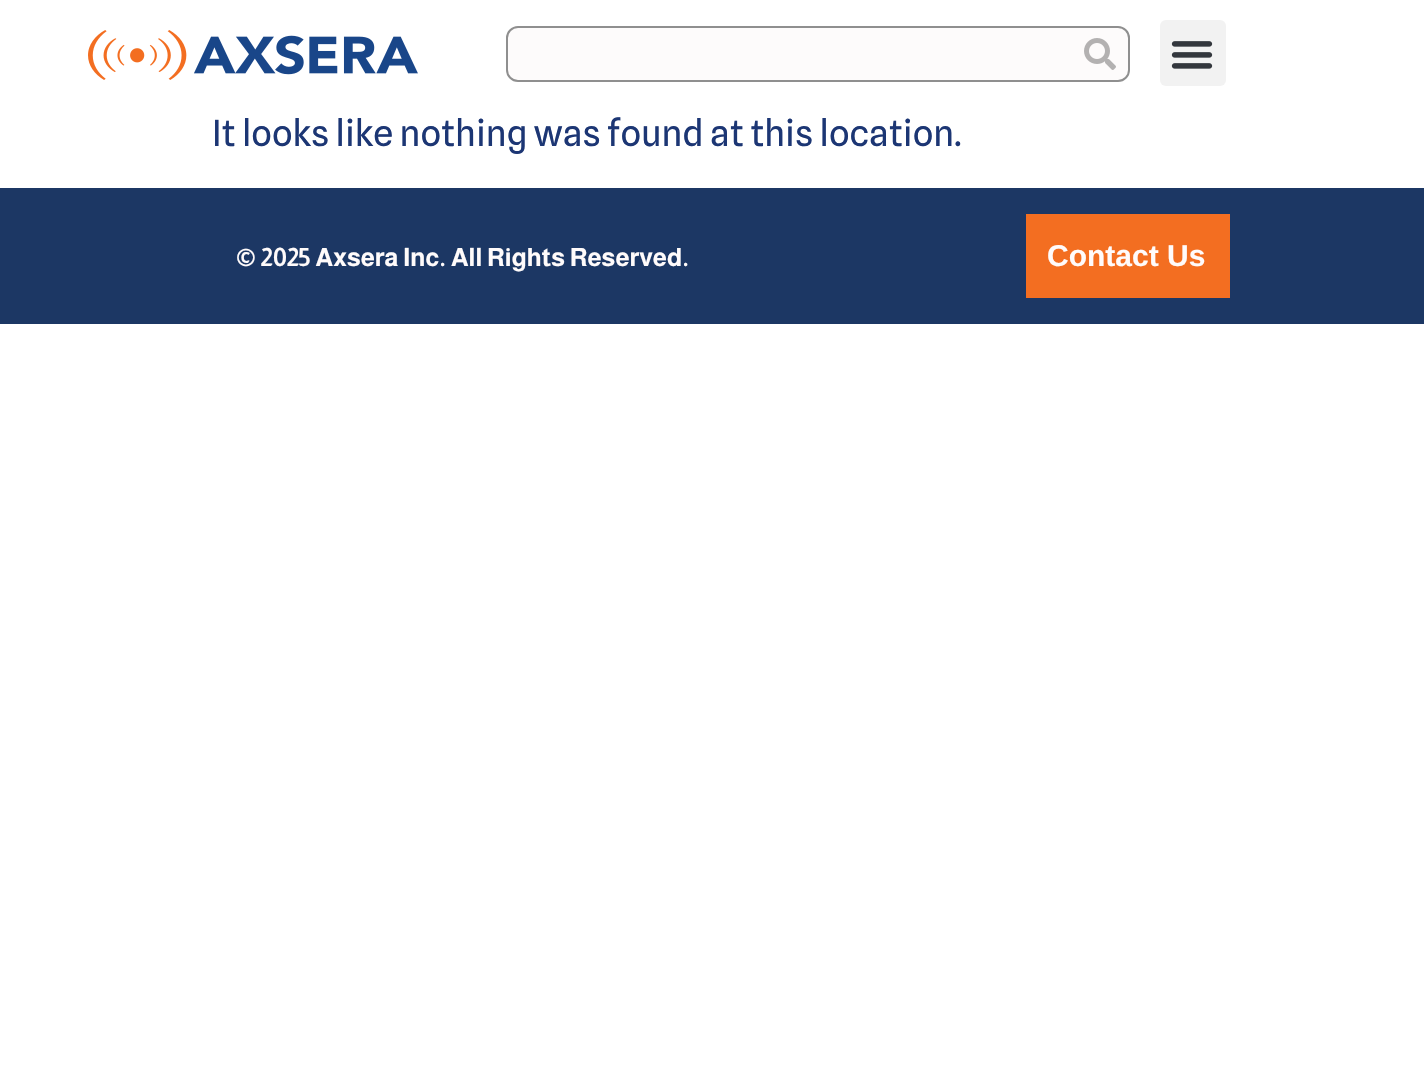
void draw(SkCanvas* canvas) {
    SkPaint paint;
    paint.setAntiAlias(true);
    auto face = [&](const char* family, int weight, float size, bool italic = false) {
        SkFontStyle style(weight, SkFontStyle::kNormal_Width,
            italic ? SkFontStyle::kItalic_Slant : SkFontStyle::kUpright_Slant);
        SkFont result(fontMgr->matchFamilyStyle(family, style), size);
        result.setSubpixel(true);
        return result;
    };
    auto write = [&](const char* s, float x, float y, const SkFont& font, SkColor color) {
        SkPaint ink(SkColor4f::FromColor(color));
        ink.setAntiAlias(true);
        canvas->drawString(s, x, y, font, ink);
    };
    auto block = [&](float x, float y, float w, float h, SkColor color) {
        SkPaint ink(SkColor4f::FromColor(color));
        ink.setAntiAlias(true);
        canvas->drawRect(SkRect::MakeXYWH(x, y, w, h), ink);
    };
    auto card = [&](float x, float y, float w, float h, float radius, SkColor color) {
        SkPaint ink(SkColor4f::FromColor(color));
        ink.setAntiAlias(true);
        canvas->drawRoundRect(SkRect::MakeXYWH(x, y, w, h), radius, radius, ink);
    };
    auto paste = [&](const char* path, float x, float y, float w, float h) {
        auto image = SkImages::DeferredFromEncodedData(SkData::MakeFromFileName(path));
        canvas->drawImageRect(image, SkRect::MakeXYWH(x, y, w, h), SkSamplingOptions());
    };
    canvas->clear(SK_ColorWHITE);
    paste("pic1.png", 88, 30, 330, 50);
    paint.setColor(SkColorSetRGB(253, 251, 251));
    canvas->drawRoundRect(SkRect::MakeXYWH(507, 27, 622, 54), 11, 11, paint);
    paint.setStyle(SkPaint::kStroke_Style);
    paint.setStrokeWidth(2);
    paint.setColor(SkColorSetRGB(143, 143, 143));
    canvas->drawRoundRect(SkRect::MakeXYWH(507, 27, 622, 54), 11, 11, paint);
    paste("pic2.png", 1084, 38, 32, 32);
    card(1160, 20, 66, 66, 6, SkColorSetRGB(242, 242, 242));
    paste("pic3.png", 1171, 41, 42, 28);
    auto kFont1 = face("Spline Sans", 400, 36);
    write("It looks like nothing was found at this location.", 212, 146, kFont1, SkColorSetRGB(28, 54, 116));
    block(0, 188, 1424, 136, SkColorSetRGB(28, 55, 100));
    auto kFont2 = face("Almarai", 700, 25.25f);
    write("© 2025 Axsera Inc. All Rights Reserved.", 236, 266, kFont2, SkColorSetRGB(255, 251, 251));
    block(1026, 214, 204, 84, SkColorSetRGB(243, 110, 33));
    auto kFont3 = face("Liberation Sans", 700, 30);
    write("Contact Us", 1047, 266, kFont3, SkColorSetRGB(255, 251, 251));
}
